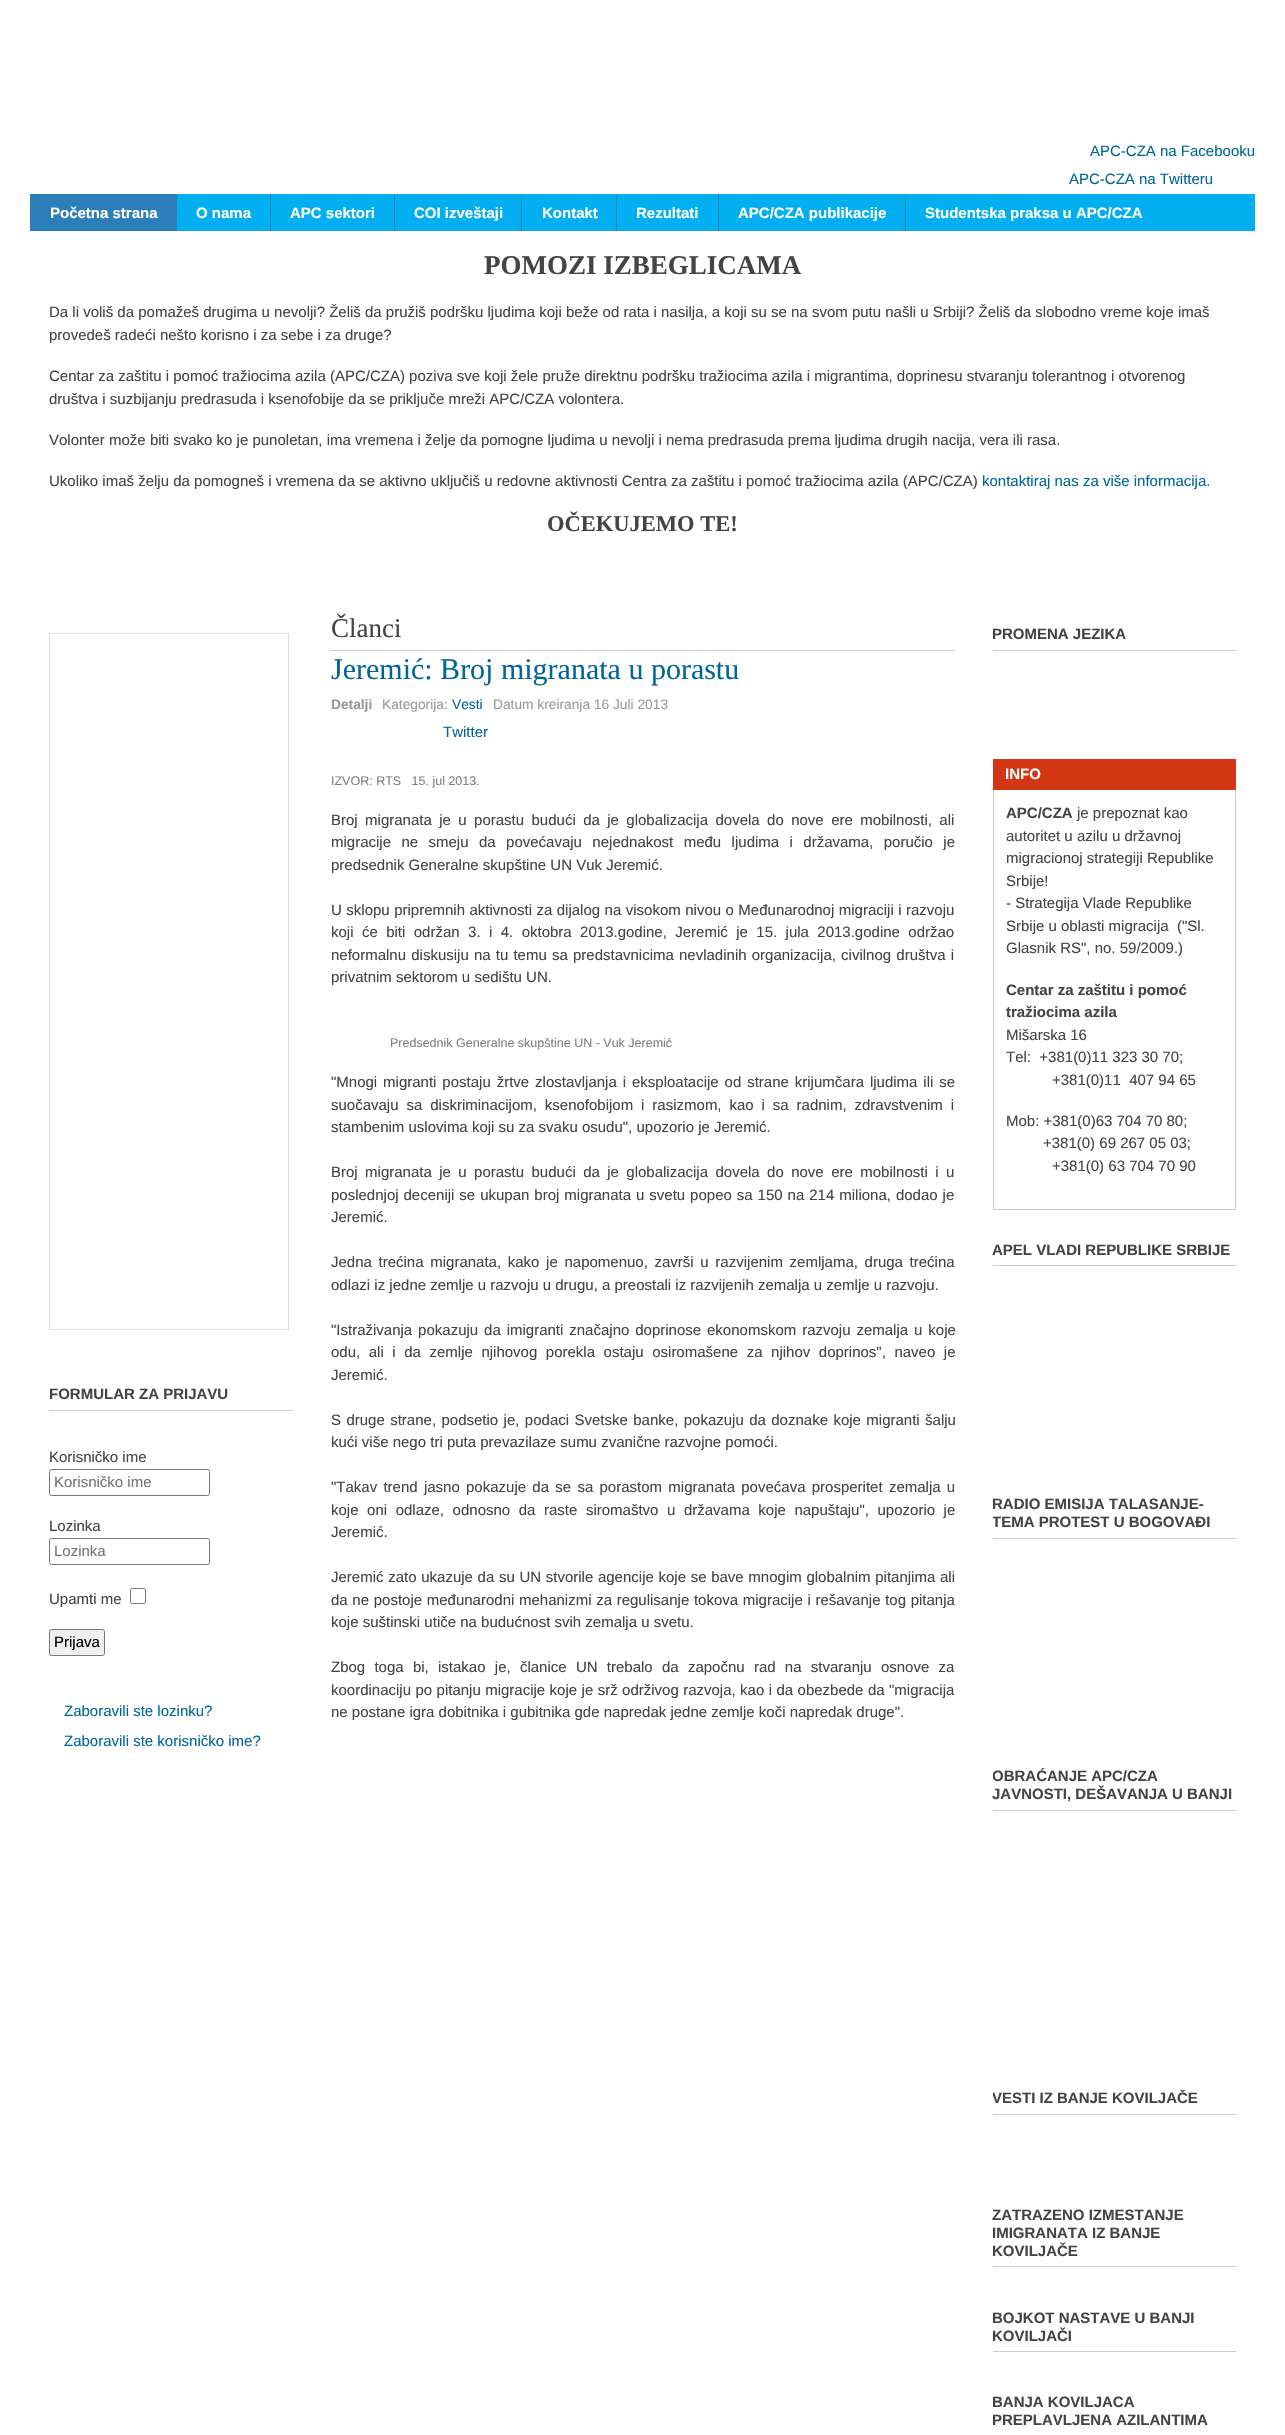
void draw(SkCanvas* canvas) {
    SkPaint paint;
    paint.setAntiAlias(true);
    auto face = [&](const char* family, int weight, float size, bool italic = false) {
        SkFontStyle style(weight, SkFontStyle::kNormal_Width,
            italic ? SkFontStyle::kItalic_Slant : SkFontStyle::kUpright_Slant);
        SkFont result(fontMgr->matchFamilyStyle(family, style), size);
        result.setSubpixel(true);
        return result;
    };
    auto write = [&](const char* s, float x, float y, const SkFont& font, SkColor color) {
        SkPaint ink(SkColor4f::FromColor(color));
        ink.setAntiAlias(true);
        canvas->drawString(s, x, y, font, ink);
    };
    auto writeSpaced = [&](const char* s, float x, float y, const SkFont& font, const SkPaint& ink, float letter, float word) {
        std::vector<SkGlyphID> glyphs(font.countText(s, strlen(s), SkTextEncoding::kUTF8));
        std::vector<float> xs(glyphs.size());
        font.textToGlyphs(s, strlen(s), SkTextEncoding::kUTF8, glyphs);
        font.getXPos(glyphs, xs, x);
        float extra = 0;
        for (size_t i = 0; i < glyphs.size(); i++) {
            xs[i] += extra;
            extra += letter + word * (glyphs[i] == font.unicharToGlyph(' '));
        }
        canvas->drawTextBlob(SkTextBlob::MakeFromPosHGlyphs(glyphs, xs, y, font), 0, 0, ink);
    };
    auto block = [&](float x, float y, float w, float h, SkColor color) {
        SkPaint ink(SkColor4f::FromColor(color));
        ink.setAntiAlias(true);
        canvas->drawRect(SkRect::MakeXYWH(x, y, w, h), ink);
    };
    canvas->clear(SK_ColorWHITE);
    auto kFont1 = face("Liberation Sans", 400, 15);
    write("APC-CZA na Facebooku", 1090, 156, kFont1, SkColorSetRGB(0, 102, 153));
    write("APC-CZA na Twitteru", 1069, 184, kFont1, SkColorSetRGB(0, 102, 153));
    block(177, 194, 1078, 37, SkColorSetRGB(1, 174, 240));
    block(30, 194, 147, 37, SkColorSetRGB(43, 126, 184));
    auto kFont2 = face("Liberation Sans", 700, 15);
    write("Početna strana", 50, 218, kFont2, SK_ColorWHITE);
    write("O nama", 196, 218, kFont2, SK_ColorWHITE);
    block(270, 194, 1, 37, SkColorSetRGB(43, 126, 184));
    write("APC sektori", 290, 218, kFont2, SK_ColorWHITE);
    block(394, 194, 1, 37, SkColorSetRGB(43, 126, 184));
    write("COI izveštaji", 414, 218, kFont2, SK_ColorWHITE);
    block(521, 194, 1, 37, SkColorSetRGB(43, 126, 184));
    write("Kontakt", 542, 218, kFont2, SK_ColorWHITE);
    block(616, 194, 1, 37, SkColorSetRGB(43, 126, 184));
    write("Rezultati", 636, 218, kFont2, SK_ColorWHITE);
    block(718, 194, 1, 37, SkColorSetRGB(43, 126, 184));
    write("APC/CZA publikacije", 738, 218, kFont2, SK_ColorWHITE);
    block(905, 194, 1, 37, SkColorSetRGB(43, 126, 184));
    write("Studentska praksa u APC/CZA", 925, 218, kFont2, SK_ColorWHITE);
    auto kFont3 = face("Liberation Serif", 700, 27);
    write("POMOZI IZBEGLICAMA", 484, 274, kFont3, SkColorSetRGB(68, 68, 68));
    write("Da li voliš da pomažeš drugima u nevolji? Želiš da pružiš podršku ljudima koji beže od rata i nasilja, a koji su se na svom putu našli u Srbiji? Želiš da slobodno vreme koje imaš", 49, 317, kFont1, SkColorSetRGB(68, 68, 68));
    write("provedeš radeći nešto korisno i za sebe i za druge?", 49, 340, kFont1, SkColorSetRGB(68, 68, 68));
    write("Centar za zaštitu i pomoć tražiocima azila (APC/CZA) poziva sve koji žele pruže direktnu podršku tražiocima azila i migrantima, doprinesu stvaranju tolerantnog i otvorenog", 49, 381, kFont1, SkColorSetRGB(68, 68, 68));
    write("društva i suzbijanju predrasuda i ksenofobije da se priključe mreži APC/CZA volontera.", 49, 404, kFont1, SkColorSetRGB(68, 68, 68));
    write("Volonter može biti svako ko je punoletan, ima vremena i želje da pomogne ljudima u nevolji i nema predrasuda prema ljudima drugih nacija, vera ili rasa.", 49, 445, kFont1, SkColorSetRGB(68, 68, 68));
    write("Ukoliko imaš želju da pomogneš i vremena da se aktivno uključiš u redovne aktivnosti Centra za zaštitu i pomoć tražiocima azila (APC/CZA)", 49, 486, kFont1, SkColorSetRGB(68, 68, 68));
    write("kontaktiraj nas za više informacija.", 982, 486, kFont1, SkColorSetRGB(0, 102, 153));
    auto kFont4 = face("Liberation Serif", 700, 22.5f);
    write("OČEKUJEMO TE!", 547, 531, kFont4, SkColorSetRGB(68, 68, 68));
    paint.setStyle(SkPaint::kStroke_Style);
    paint.setStrokeWidth(1);
    paint.setColor(SkColorSetRGB(221, 221, 221));
    canvas->drawRect(SkRect::MakeXYWH(49.5f, 633.5f, 239, 696), paint);
    block(49, 1410, 244, 1, SkColorSetRGB(204, 204, 204));
    write("FORMULAR ZA PRIJAVU", 49, 1399, kFont2, SkColorSetRGB(68, 68, 68));
    write("Korisničko ime", 49, 1462, kFont1, SkColorSetRGB(68, 68, 68));
    paint.setColor(SkColorSetRGB(118, 118, 118));
    canvas->drawRoundRect(SkRect::MakeXYWH(49.5f, 1469.5f, 160, 26), 2, 2, paint);
    write("Korisničko ime", 54, 1487, kFont1, SkColorSetRGB(117, 117, 117));
    write("Lozinka", 49, 1531, kFont1, SkColorSetRGB(68, 68, 68));
    canvas->drawRoundRect(SkRect::MakeXYWH(49.5f, 1538.5f, 160, 26), 2, 2, paint);
    write("Lozinka", 54, 1556, kFont1, SkColorSetRGB(117, 117, 117));
    write("Upamti me", 49, 1604, kFont1, SkColorSetRGB(68, 68, 68));
    canvas->drawRoundRect(SkRect::MakeXYWH(130.5f, 1588.5f, 15, 15), 2, 2, paint);
    paint.setStyle(SkPaint::kFill_Style);
    paint.setColor(SkColorSetRGB(239, 239, 239));
    canvas->drawRoundRect(SkRect::MakeXYWH(49.5f, 1629.5f, 55, 26), 2, 2, paint);
    paint.setStyle(SkPaint::kStroke_Style);
    paint.setColor(SkColorSetRGB(118, 118, 118));
    canvas->drawRoundRect(SkRect::MakeXYWH(49.5f, 1629.5f, 55, 26), 2, 2, paint);
    write("Prijava", 54, 1647, kFont1, SK_ColorBLACK);
    write("Zaboravili ste lozinku?", 64, 1716, kFont1, SkColorSetRGB(0, 102, 153));
    write("Zaboravili ste korisničko ime?", 64, 1746, kFont1, SkColorSetRGB(0, 102, 153));
    block(330, 650, 625, 1, SkColorSetRGB(204, 204, 204));
    auto kFont5 = face("Liberation Serif", 400, 27);
    write("Članci", 331, 637, kFont5, SkColorSetRGB(68, 68, 68));
    auto kFont6 = face("Liberation Serif", 400, 30);
    write("Jeremić: Broj migranata u porastu", 331, 679, kFont6, SkColorSetRGB(0, 102, 153));
    auto kFont7 = face("Liberation Sans", 700, 13.75f);
    write("Detalji", 331, 709, kFont7, SkColorSetRGB(153, 153, 153));
    auto kFont8 = face("Liberation Sans", 400, 13.75f);
    write("Kategorija:", 382, 709, kFont8, SkColorSetRGB(153, 153, 153));
    write("Vesti", 452, 709, kFont8, SkColorSetRGB(0, 102, 153));
    write("Datum kreiranja 16 Juli 2013", 493, 709, kFont8, SkColorSetRGB(153, 153, 153));
    write("Twitter", 443, 737, kFont1, SkColorSetRGB(0, 102, 153));
    auto kFont9 = face("Liberation Sans", 400, 12.5f);
    write("IZVOR: RTS   15. jul 2013.", 331, 785, kFont9, SkColorSetRGB(128, 128, 128));
    paint.setStyle(SkPaint::kFill_Style);
    paint.setColor(SkColorSetRGB(68, 68, 68));
    writeSpaced("Broj migranata je u porastu budući da je globalizacija dovela do nove ere mobilnosti, ali", 331, 825, kFont1, paint, 0, 3.25f);
    writeSpaced("migracije ne smeju da povećavaju nejednakost među ljudima i državama, poručio je", 331, 847, kFont1, paint, 0, 6.25f);
    write("predsednik Generalne skupštine UN Vuk Jeremić.", 331, 870, kFont1, SkColorSetRGB(68, 68, 68));
    writeSpaced("U sklopu pripremnih aktivnosti za dijalog na visokom nivou o Međunarodnoj migraciji i razvoju", 331, 915, kFont1, paint, 0, 0.3f);
    writeSpaced("koji će biti održan 3. i 4. oktobra 2013.godine, Jeremić je 15. jula 2013.godine održao", 331, 937, kFont1, paint, 0, 4.25f);
    writeSpaced("neformalnu diskusiju na tu temu sa predstavnicima nevladinih organizacija, civilnog društva i", 331, 960, kFont1, paint, 0, 1);
    write("privatnim sektorom u sedištu UN.", 331, 982, kFont1, SkColorSetRGB(68, 68, 68));
    write("Predsednik Generalne skupštine UN - Vuk Jeremić", 390, 1047, kFont9, SkColorSetRGB(128, 128, 128));
    writeSpaced("\"Mnogi migranti postaju žrtve zlostavljanja i eksploatacije od strane krijumčara ljudima ili se", 331, 1087, kFont1, paint, 0, 1.75f);
    writeSpaced("suočavaju sa diskriminacijom, ksenofobijom i rasizmom, kao i sa radnim, zdravstvenim i", 331, 1110, kFont1, paint, 0, 3.75f);
    write("stambenim uslovima koji su za svaku osudu\", upozorio je Jeremić.", 331, 1132, kFont1, SkColorSetRGB(68, 68, 68));
    writeSpaced("Broj migranata je u porastu budući da je globalizacija dovela do nove ere mobilnosti i u", 331, 1177, kFont1, paint, 0, 3.25f);
    writeSpaced("poslednjoj deceniji se ukupan broj migranata u svetu popeo sa 150 na 214 miliona, dodao je", 331, 1200, kFont1, paint, 0, 0.8f);
    write("Jeremić.", 331, 1222, kFont1, SkColorSetRGB(68, 68, 68));
    writeSpaced("Jedna trećina migranata, kako je napomenuo, završi u razvijenim zemljama, druga trećina", 331, 1267, kFont1, paint, 0, 2.5f);
    write("odlazi iz jedne zemlje u razvoju u drugu, a preostali iz razvijenih zemalja u zemlje u razvoju.", 331, 1290, kFont1, SkColorSetRGB(68, 68, 68));
    writeSpaced("\"Istraživanja pokazuju da imigranti značajno doprinose ekonomskom razvoju zemalja u koje", 331, 1335, kFont1, paint, 0, 1.75f);
    writeSpaced("odu, ali i da zemlje njihovog porekla ostaju osiromašene za njihov doprinos\", naveo je", 331, 1357, kFont1, paint, 0, 4.4f);
    write("Jeremić.", 331, 1380, kFont1, SkColorSetRGB(68, 68, 68));
    writeSpaced("S druge strane, podsetio je, podaci Svetske banke, pokazuju da doznake koje migranti šalju", 331, 1425, kFont1, paint, 0, 1.25f);
    write("kući više nego tri puta prevazilaze sumu zvanične razvojne pomoći.", 331, 1447, kFont1, SkColorSetRGB(68, 68, 68));
    writeSpaced("\"Takav trend jasno pokazuje da se sa porastom migranata povećava prosperitet zemalja u", 331, 1492, kFont1, paint, 0, 2.1f);
    writeSpaced("koje oni odlaze, odnosno da raste siromaštvo u državama koje napuštaju\", upozorio je", 331, 1515, kFont1, paint, 0, 4.4f);
    write("Jeremić.", 331, 1537, kFont1, SkColorSetRGB(68, 68, 68));
    writeSpaced("Jeremić zato ukazuje da su UN stvorile agencije koje se bave mnogim globalnim pitanjima ali", 331, 1582, kFont1, paint, 0, 0.5f);
    writeSpaced("da ne postoje međunarodni mehanizmi za regulisanje tokova migracije i rešavanje tog pitanja", 331, 1605, kFont1, paint, 0, 0.5f);
    write("koje suštinski utiče na budućnost svih zemalja u svetu.", 331, 1627, kFont1, SkColorSetRGB(68, 68, 68));
    writeSpaced("Zbog toga bi, istakao je, članice UN trebalo da započnu rad na stvaranju osnove za", 331, 1672, kFont1, paint, 0, 5.1f);
    writeSpaced("koordinaciju po pitanju migracije koje je srž održivog razvoja, kao i da obezbede da \"migracija", 331, 1695, kFont1, paint, 0, 0.25f);
    write("ne postane igra dobitnika i gubitnika gde napredak jedne zemlje koči napredak druge\".", 331, 1717, kFont1, SkColorSetRGB(68, 68, 68));
    block(993, 650, 243, 1, SkColorSetRGB(204, 204, 204));
    write("PROMENA JEZIKA", 992, 639, kFont2, SkColorSetRGB(68, 68, 68));
    block(993, 759, 243, 31, SkColorSetRGB(211, 54, 21));
    write("INFO", 1005, 779, kFont2, SK_ColorWHITE);
    block(1235, 790, 1, 420, SkColorSetRGB(204, 204, 204));
    block(993, 1209, 243, 1, SkColorSetRGB(204, 204, 204));
    block(993, 790, 1, 420, SkColorSetRGB(204, 204, 204));
    write("APC/CZA", 1006, 818, kFont2, SkColorSetRGB(68, 68, 68));
    write("je prepoznat kao", 1077, 818, kFont1, SkColorSetRGB(68, 68, 68));
    write("autoritet u azilu u državnoj", 1006, 841, kFont1, SkColorSetRGB(68, 68, 68));
    write("migracionoj strategiji Republike", 1006, 863, kFont1, SkColorSetRGB(68, 68, 68));
    write("Srbije!", 1006, 886, kFont1, SkColorSetRGB(68, 68, 68));
    write("- Strategija Vlade Republike", 1006, 908, kFont1, SkColorSetRGB(68, 68, 68));
    write("Srbije u oblasti migracija  (\"Sl.", 1006, 931, kFont1, SkColorSetRGB(68, 68, 68));
    write("Glasnik RS\", no. 59/2009.)", 1006, 953, kFont1, SkColorSetRGB(68, 68, 68));
    write("Centar za zaštitu i pomoć", 1006, 995, kFont2, SkColorSetRGB(68, 68, 68));
    write("tražiocima azila", 1006, 1017, kFont2, SkColorSetRGB(68, 68, 68));
    write("Mišarska 16", 1006, 1040, kFont1, SkColorSetRGB(68, 68, 68));
    write("Tel:  +381(0)11 323 30 70;", 1006, 1062, kFont1, SkColorSetRGB(68, 68, 68));
    write("+381(0)11  407 94 65", 1052, 1085, kFont1, SkColorSetRGB(68, 68, 68));
    write("Mob: +381(0)63 704 70 80;", 1006, 1126, kFont1, SkColorSetRGB(68, 68, 68));
    write("+381(0) 69 267 05 03;", 1043, 1148, kFont1, SkColorSetRGB(68, 68, 68));
    write("+381(0) 63 704 70 90", 1052, 1171, kFont1, SkColorSetRGB(68, 68, 68));
    block(993, 1265, 243, 1, SkColorSetRGB(204, 204, 204));
    write("APEL VLADI REPUBLIKE SRBIJE", 992, 1255, kFont2, SkColorSetRGB(68, 68, 68));
    block(993, 1538, 243, 1, SkColorSetRGB(204, 204, 204));
    write("RADIO EMISIJA TALASANJE-", 992, 1509, kFont2, SkColorSetRGB(68, 68, 68));
    canvas->save();
    canvas->clipRect(SkRect::MakeXYWH(993, 1495, 243, 43));
    write("TEMA PROTEST U BOGOVAĐI", 992, 1527, kFont2, SkColorSetRGB(68, 68, 68));
    canvas->restore();
    block(993, 1810, 243, 1, SkColorSetRGB(204, 204, 204));
    canvas->save();
    canvas->clipRect(SkRect::MakeXYWH(993, 1768, 243, 42));
    write("OBRAĆANJE APC/CZA", 992, 1781, kFont2, SkColorSetRGB(68, 68, 68));
    canvas->restore();
    write("JAVNOSTI, DEŠAVANJA U BANJI", 992, 1799, kFont2, SkColorSetRGB(68, 68, 68));
    block(993, 2114, 243, 1, SkColorSetRGB(204, 204, 204));
    canvas->save();
    canvas->clipRect(SkRect::MakeXYWH(993, 2090, 243, 24));
    write("VESTI IZ BANJE KOVILJAČE", 992, 2103, kFont2, SkColorSetRGB(68, 68, 68));
    canvas->restore();
    block(993, 2266, 243, 1, SkColorSetRGB(204, 204, 204));
    write("ZATRAZENO IZMESTANJE", 992, 2220, kFont2, SkColorSetRGB(68, 68, 68));
    write("IMIGRANATA IZ BANJE", 992, 2238, kFont2, SkColorSetRGB(68, 68, 68));
    write("KOVILJAČE", 992, 2256, kFont2, SkColorSetRGB(68, 68, 68));
    block(993, 2351, 243, 1, SkColorSetRGB(204, 204, 204));
    write("BOJKOT NASTAVE U BANJI", 992, 2323, kFont2, SkColorSetRGB(68, 68, 68));
    write("KOVILJAČI", 992, 2341, kFont2, SkColorSetRGB(68, 68, 68));
    write("BANJA KOVILJACA", 992, 2407, kFont2, SkColorSetRGB(68, 68, 68));
    write("PREPLAVLJENA AZILANTIMA", 992, 2425, kFont2, SkColorSetRGB(68, 68, 68));
}
